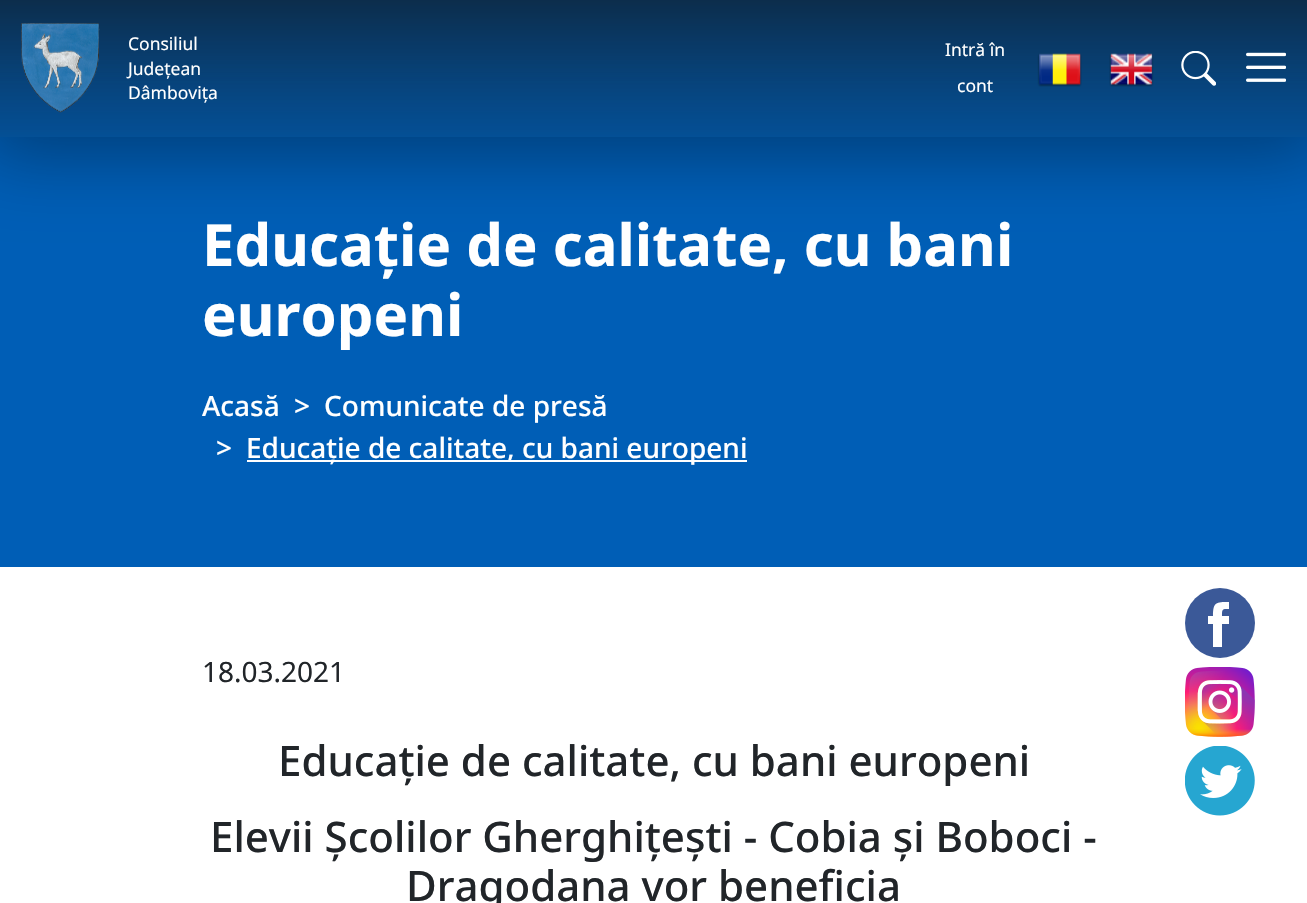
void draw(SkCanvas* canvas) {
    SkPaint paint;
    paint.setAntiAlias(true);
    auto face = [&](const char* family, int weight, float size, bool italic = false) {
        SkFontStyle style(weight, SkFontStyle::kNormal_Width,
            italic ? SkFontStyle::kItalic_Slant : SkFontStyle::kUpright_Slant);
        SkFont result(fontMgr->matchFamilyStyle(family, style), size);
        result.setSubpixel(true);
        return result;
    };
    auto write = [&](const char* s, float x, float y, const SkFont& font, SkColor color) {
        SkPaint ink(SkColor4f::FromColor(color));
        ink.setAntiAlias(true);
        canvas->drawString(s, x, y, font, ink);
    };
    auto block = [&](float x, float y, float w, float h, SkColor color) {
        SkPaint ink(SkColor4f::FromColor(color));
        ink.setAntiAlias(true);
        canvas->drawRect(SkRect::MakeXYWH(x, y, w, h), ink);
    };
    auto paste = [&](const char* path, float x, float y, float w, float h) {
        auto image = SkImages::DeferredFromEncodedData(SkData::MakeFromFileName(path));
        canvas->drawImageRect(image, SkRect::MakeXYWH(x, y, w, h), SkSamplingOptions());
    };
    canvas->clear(SK_ColorWHITE);
    block(0, 0, 1307, 567, SkColorSetRGB(0, 94, 182));
    canvas->save();
    canvas->clipPath(SkPathBuilder(SkPathFillType::kEvenOdd).moveTo(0, 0).lineTo(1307, 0).lineTo(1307, 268).lineTo(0, 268).close().moveTo(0, 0).lineTo(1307, 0).lineTo(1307, 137).lineTo(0, 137).close().detach(), true);
    paint.setColor(SkColorSetARGB(89, 0, 0, 0));
    paint.setMaskFilter(SkMaskFilter::MakeBlur(kNormal_SkBlurStyle, 37.5f));
    canvas->drawRect(SkRect::MakeXYWH(-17, -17, 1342, 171), paint);
    paint.setMaskFilter(nullptr);
    canvas->restore();
    {
        const SkColor colors[] = {SkColorSetARGB(166, 18, 18, 18), SkColorSetARGB(64, 17, 34, 51)};
        const float stops[] = {0, 1};
        const SkPoint ends[] = {{654, 0}, {654, 137}};
        paint.setShader(SkGradientShader::MakeLinear(ends, colors, stops, 2, SkTileMode::kClamp));
        paint.setAlpha(255);
    }
    canvas->drawRect(SkRect::MakeXYWH(0, 0, 1307, 137), paint);
    paste("pic1.png", 21, 23, 79, 90);
    auto kFont1 = face("Noto Sans", 400, 17.5f);
    write("Consiliul", 128, 50, kFont1, SK_ColorWHITE);
    write("Județean", 128, 75, kFont1, SK_ColorWHITE);
    write("Dâmbovița", 128, 99, kFont1, SK_ColorWHITE);
    write("Intră în", 945, 56, kFont1, SK_ColorWHITE);
    write("cont", 957, 92, kFont1, SK_ColorWHITE);
    paste("pic2.png", 1037, 53, 45, 34);
    paste("pic3.png", 1109, 53, 45, 34);
    paste("pic4.png", 1181, 51, 35, 35);
    paste("pic5.png", 1246, 52, 40, 30);
    auto kFont2 = face("Noto Sans", 700, 58.1f);
    write("Educație de calitate, cu bani", 202, 266, kFont2, SK_ColorWHITE);
    write("europeni", 202, 336, kFont2, SK_ColorWHITE);
    auto kFont3 = face("Noto Sans", 500, 28);
    write("Acasă", 202, 416, kFont3, SK_ColorWHITE);
    write(">", 294, 416, kFont3, SK_ColorWHITE);
    write("Comunicate de presă", 324, 416, kFont3, SK_ColorWHITE);
    write(">", 216, 458, kFont3, SK_ColorWHITE);
    block(247, 460, 500, 2, SK_ColorWHITE);
    write("Educație de calitate, cu bani europeni", 246, 458, kFont3, SK_ColorWHITE);
    auto kFont4 = face("Noto Sans", 400, 28);
    write("18.03.2021", 202, 682, kFont4, SkColorSetRGB(33, 37, 41));
    auto kFont5 = face("Noto Sans", 500, 42);
    write("Educație de calitate, cu bani europeni", 278, 776, kFont5, SkColorSetRGB(33, 37, 41));
    write("Elevii Școlilor Gherghițești - Cobia și Boboci -", 210, 852, kFont5, SkColorSetRGB(33, 37, 41));
    write("Dragodana vor beneficia", 406, 901, kFont5, SkColorSetRGB(33, 37, 41));
    paint.setShader(nullptr);
    paint.setColor(SkColorSetRGB(59, 89, 152));
    canvas->drawCircle(1220, 623, 35, paint);
    paint.setColor(SK_ColorWHITE);
    canvas->drawPath(SkPathBuilder().moveTo(1229, 624).lineTo(1222, 624).lineTo(1222, 647).lineTo(1213, 647).lineTo(1213, 624).lineTo(1208, 624).lineTo(1208, 616).lineTo(1213, 616).cubicTo(1213, 602, 1216, 602, 1229, 602).lineTo(1229, 609).cubicTo(1222, 609, 1222, 609, 1222, 616).lineTo(1229, 616).close().detach(), paint);
    paste("pic6.png", 1185, 667, 70, 70);
    paste("pic7.png", 1185, 746, 70, 70);
}
